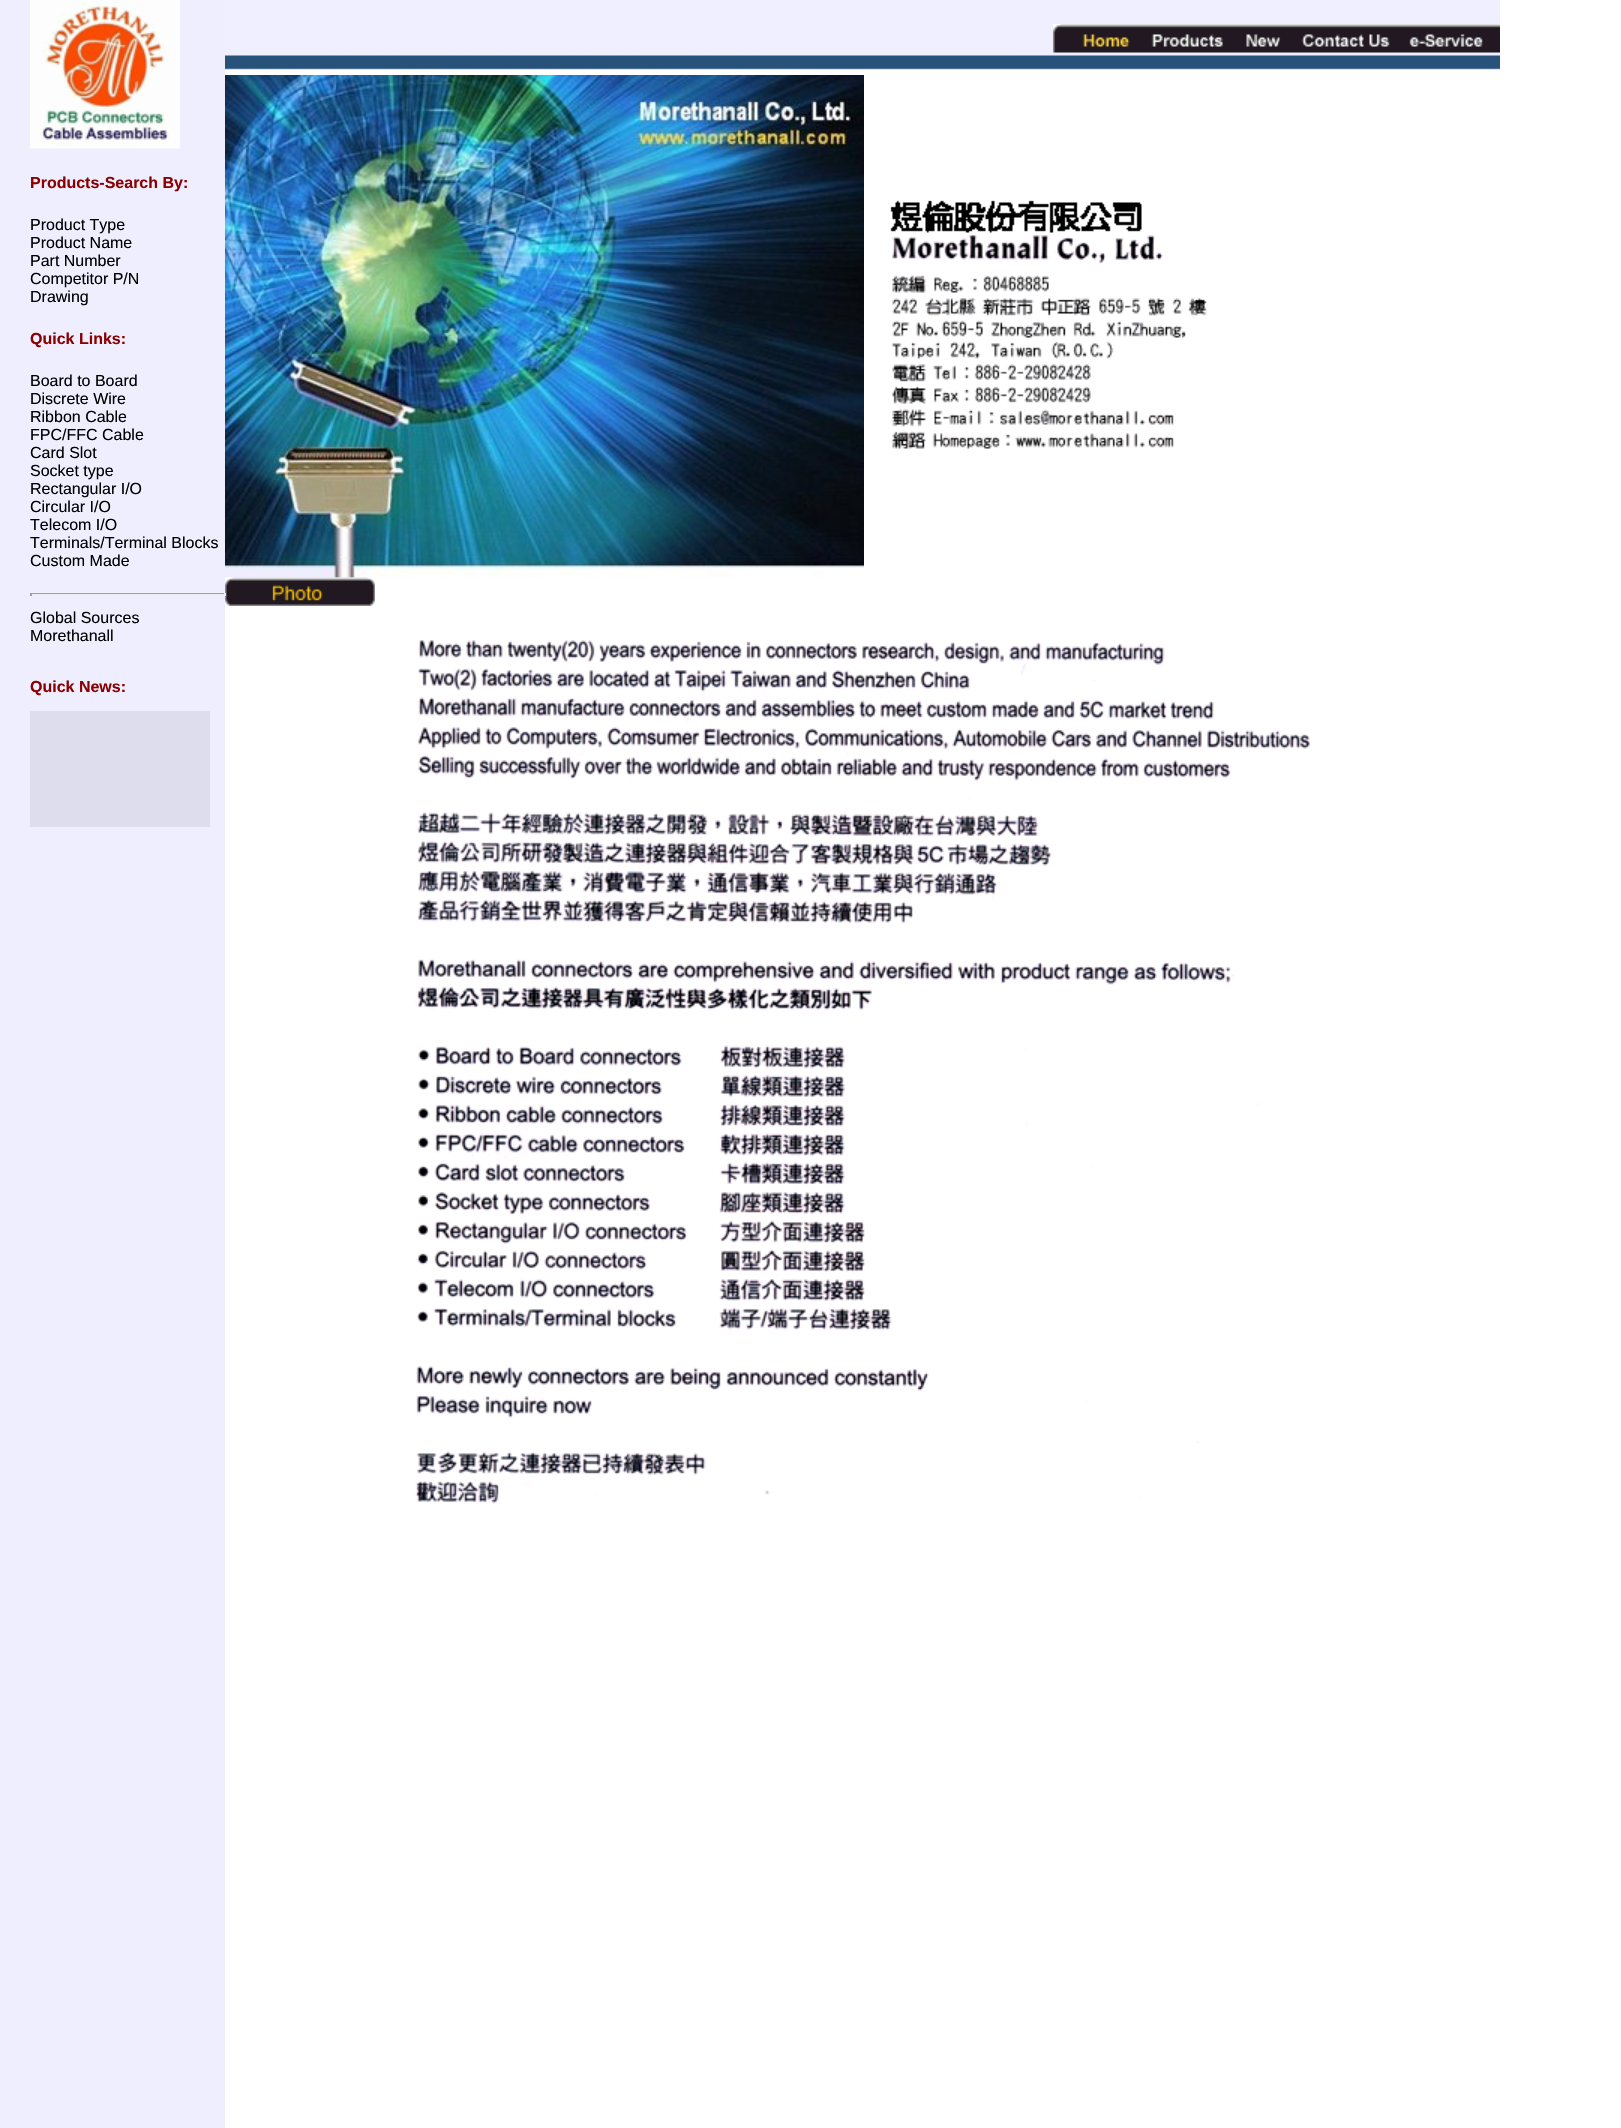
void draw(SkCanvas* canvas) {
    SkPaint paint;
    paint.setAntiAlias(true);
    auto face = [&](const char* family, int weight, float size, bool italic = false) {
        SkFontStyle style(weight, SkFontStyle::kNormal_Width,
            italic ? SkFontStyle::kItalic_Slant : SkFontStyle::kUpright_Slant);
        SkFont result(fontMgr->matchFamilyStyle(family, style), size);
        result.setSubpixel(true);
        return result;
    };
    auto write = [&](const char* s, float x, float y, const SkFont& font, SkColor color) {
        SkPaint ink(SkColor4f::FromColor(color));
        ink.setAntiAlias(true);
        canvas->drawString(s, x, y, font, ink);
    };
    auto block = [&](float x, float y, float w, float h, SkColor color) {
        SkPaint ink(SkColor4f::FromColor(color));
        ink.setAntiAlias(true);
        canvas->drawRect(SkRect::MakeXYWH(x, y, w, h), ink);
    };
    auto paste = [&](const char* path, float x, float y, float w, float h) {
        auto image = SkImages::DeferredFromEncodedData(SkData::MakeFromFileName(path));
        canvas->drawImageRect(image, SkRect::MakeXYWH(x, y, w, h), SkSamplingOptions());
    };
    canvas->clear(SK_ColorWHITE);
    block(0, 0, 225, 2128, SkColorSetRGB(238, 238, 255));
    paste("pic1.png", 225, 0, 1275, 70);
    paste("pic2.png", 1053, 24, 447, 29);
    paste("pic3.png", 30, 0, 150, 149);
    auto kFont1 = face("Liberation Sans", 700, 16);
    write("Products-Search By:", 30, 188, kFont1, SkColorSetRGB(139, 0, 0));
    auto kFont2 = face("Liberation Sans", 400, 16);
    write("Product Type", 30, 230, kFont2, SK_ColorBLACK);
    write("Product Name", 30, 248, kFont2, SK_ColorBLACK);
    write("Part Number", 30, 266, kFont2, SK_ColorBLACK);
    write("Competitor P/N", 30, 284, kFont2, SK_ColorBLACK);
    write("Drawing", 30, 302, kFont2, SK_ColorBLACK);
    write("Quick Links:", 30, 344, kFont1, SkColorSetRGB(139, 0, 0));
    write("Board to Board", 30, 386, kFont2, SK_ColorBLACK);
    write("Discrete Wire", 30, 404, kFont2, SK_ColorBLACK);
    write("Ribbon Cable", 30, 422, kFont2, SK_ColorBLACK);
    write("FPC/FFC Cable", 30, 440, kFont2, SK_ColorBLACK);
    write("Card Slot", 30, 458, kFont2, SK_ColorBLACK);
    write("Socket type", 30, 476, kFont2, SK_ColorBLACK);
    write("Rectangular I/O", 30, 494, kFont2, SK_ColorBLACK);
    write("Circular I/O", 30, 512, kFont2, SK_ColorBLACK);
    write("Telecom I/O", 30, 530, kFont2, SK_ColorBLACK);
    write("Terminals/Terminal Blocks", 30, 548, kFont2, SK_ColorBLACK);
    write("Custom Made", 30, 566, kFont2, SK_ColorBLACK);
    block(30, 593, 195, 1, SkColorSetRGB(159, 159, 159));
    paste("pic4.png", 225, 75, 639, 503);
    paste("pic6.png", 225, 577, 150, 29);
    block(224, 593, 2, 3, SkColorSetRGB(238, 238, 238));
    block(30, 594, 195, 2, SkColorSetRGB(238, 238, 238));
    block(30, 593, 2, 3, SkColorSetRGB(159, 159, 159));
    write("Global Sources", 30, 623, kFont2, SK_ColorBLACK);
    write("Morethanall", 30, 641, kFont2, SK_ColorBLACK);
    write("Quick News:", 30, 692, kFont1, SkColorSetRGB(139, 0, 0));
    block(30, 711, 180, 116, SkColorSetRGB(221, 221, 238));
    paste("pic5.png", 890, 200, 317, 249);
    paste("pic7.png", 414, 640, 896, 864);
}
